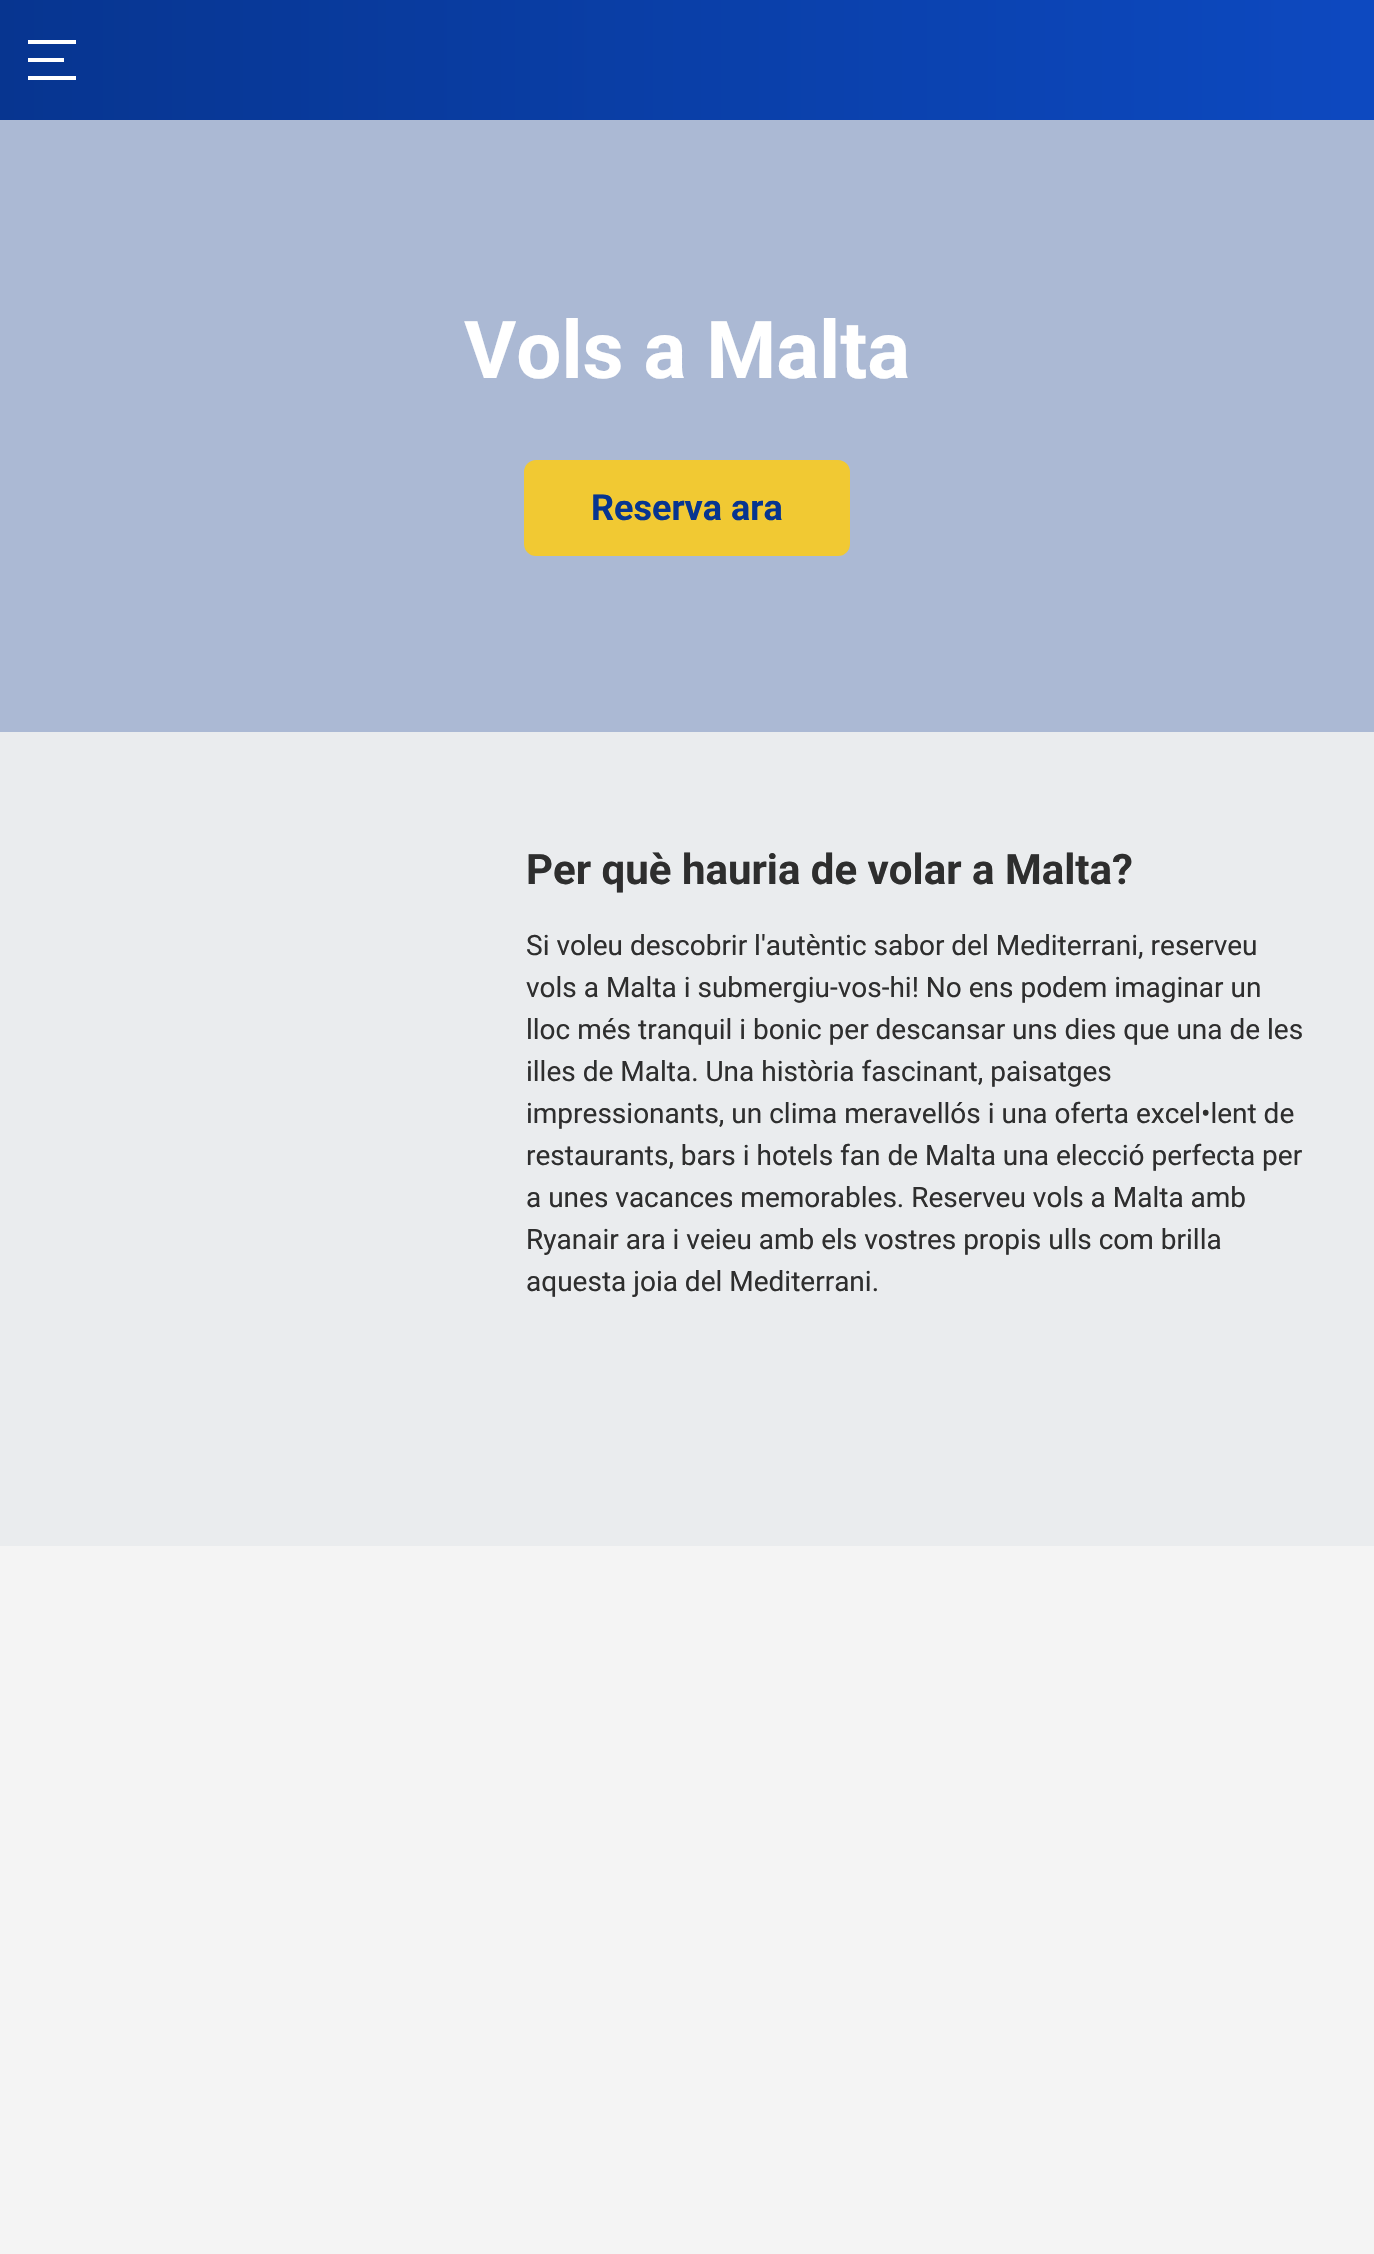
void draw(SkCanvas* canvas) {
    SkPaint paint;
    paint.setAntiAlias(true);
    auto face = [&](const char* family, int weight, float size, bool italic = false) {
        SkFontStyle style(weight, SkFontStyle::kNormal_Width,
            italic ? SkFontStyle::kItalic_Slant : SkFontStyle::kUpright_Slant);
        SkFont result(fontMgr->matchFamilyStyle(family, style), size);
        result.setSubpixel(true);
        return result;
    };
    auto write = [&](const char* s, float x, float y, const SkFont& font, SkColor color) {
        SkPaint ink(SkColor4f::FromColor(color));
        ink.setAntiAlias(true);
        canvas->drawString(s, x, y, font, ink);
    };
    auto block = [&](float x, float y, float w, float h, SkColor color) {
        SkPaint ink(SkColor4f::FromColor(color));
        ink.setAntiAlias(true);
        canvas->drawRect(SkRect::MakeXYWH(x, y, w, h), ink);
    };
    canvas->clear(SkColorSetRGB(244, 244, 244));
    {
        const SkColor colors[] = {SkColorSetRGB(7, 53, 144), SkColorSetRGB(13, 73, 192)};
        const float stops[] = {0, 1};
        const SkPoint ends[] = {{0, 60}, {1374, 60}};
        paint.setShader(SkGradientShader::MakeLinear(ends, colors, stops, 2, SkTileMode::kClamp));
        paint.setAlpha(255);
    }
    canvas->drawRect(SkRect::MakeXYWH(0, 0, 1374, 120), paint);
    block(28, 76, 48, 4, SK_ColorWHITE);
    block(28, 40, 48, 4, SK_ColorWHITE);
    block(28, 58, 36, 4, SK_ColorWHITE);
    block(0, 120, 1374, 612, SkColorSetRGB(171, 185, 212));
    auto kFont1 = face("Roboto", 700, 80);
    write("Vols a Malta", 464, 378, kFont1, SK_ColorWHITE);
    paint.setShader(nullptr);
    paint.setColor(SkColorSetRGB(241, 201, 51));
    canvas->drawRoundRect(SkRect::MakeXYWH(526, 462, 322, 92), 10, 10, paint);
    paint.setStyle(SkPaint::kStroke_Style);
    paint.setStrokeWidth(4);
    canvas->drawRoundRect(SkRect::MakeXYWH(526, 462, 322, 92), 10, 10, paint);
    auto kFont2 = face("Roboto", 700, 36);
    write("Reserva ara", 591, 520, kFont2, SkColorSetRGB(7, 53, 144));
    block(0, 732, 1374, 814, SkColorSetRGB(234, 236, 238));
    auto kFont3 = face("Roboto", 700, 42);
    write("Per què hauria de volar a Malta?", 526, 884, kFont3, SkColorSetRGB(46, 46, 46));
    auto kFont4 = face("Roboto", 400, 28);
    write("Si voleu descobrir l'autèntic sabor del Mediterrani, reserveu", 526, 955, kFont4, SkColorSetRGB(46, 46, 46));
    write("vols a Malta i submergiu-vos-hi! No ens podem imaginar un", 526, 997, kFont4, SkColorSetRGB(46, 46, 46));
    write("lloc més tranquil i bonic per descansar uns dies que una de les", 526, 1039, kFont4, SkColorSetRGB(46, 46, 46));
    write("illes de Malta. Una història fascinant, paisatges", 526, 1081, kFont4, SkColorSetRGB(46, 46, 46));
    write("impressionants, un clima meravellós i una oferta excel•lent de", 526, 1123, kFont4, SkColorSetRGB(46, 46, 46));
    write("restaurants, bars i hotels fan de Malta una elecció perfecta per", 526, 1165, kFont4, SkColorSetRGB(46, 46, 46));
    write("a unes vacances memorables. Reserveu vols a Malta amb", 526, 1207, kFont4, SkColorSetRGB(46, 46, 46));
    write("Ryanair ara i veieu amb els vostres propis ulls com brilla", 526, 1249, kFont4, SkColorSetRGB(46, 46, 46));
    write("aquesta joia del Mediterrani.", 526, 1291, kFont4, SkColorSetRGB(46, 46, 46));
}
